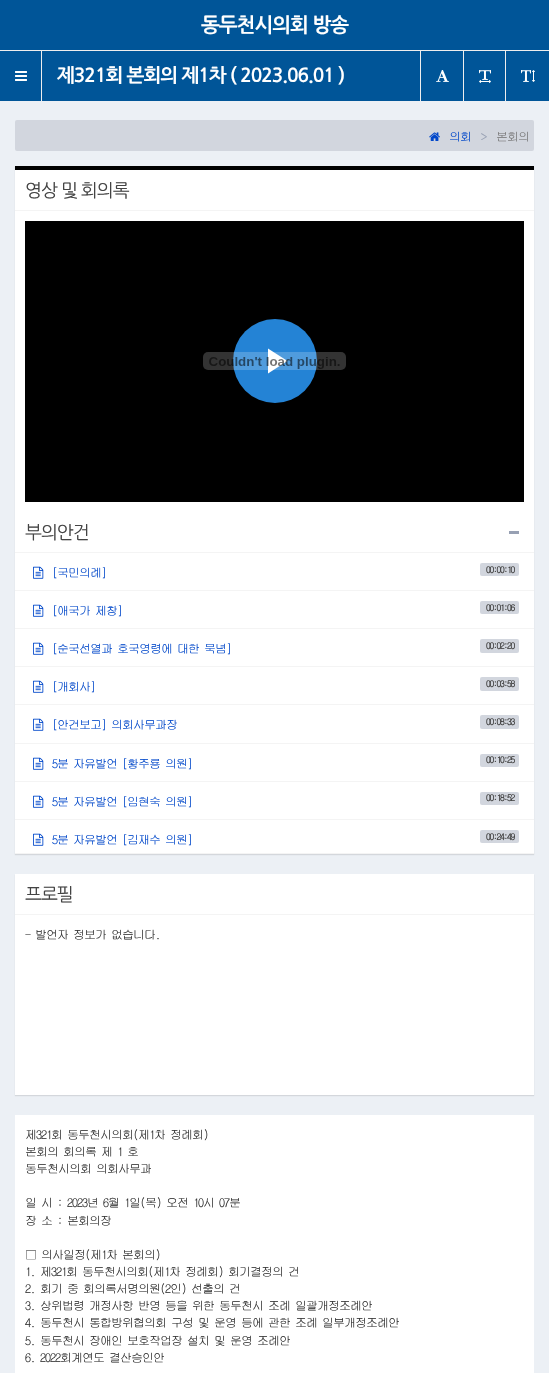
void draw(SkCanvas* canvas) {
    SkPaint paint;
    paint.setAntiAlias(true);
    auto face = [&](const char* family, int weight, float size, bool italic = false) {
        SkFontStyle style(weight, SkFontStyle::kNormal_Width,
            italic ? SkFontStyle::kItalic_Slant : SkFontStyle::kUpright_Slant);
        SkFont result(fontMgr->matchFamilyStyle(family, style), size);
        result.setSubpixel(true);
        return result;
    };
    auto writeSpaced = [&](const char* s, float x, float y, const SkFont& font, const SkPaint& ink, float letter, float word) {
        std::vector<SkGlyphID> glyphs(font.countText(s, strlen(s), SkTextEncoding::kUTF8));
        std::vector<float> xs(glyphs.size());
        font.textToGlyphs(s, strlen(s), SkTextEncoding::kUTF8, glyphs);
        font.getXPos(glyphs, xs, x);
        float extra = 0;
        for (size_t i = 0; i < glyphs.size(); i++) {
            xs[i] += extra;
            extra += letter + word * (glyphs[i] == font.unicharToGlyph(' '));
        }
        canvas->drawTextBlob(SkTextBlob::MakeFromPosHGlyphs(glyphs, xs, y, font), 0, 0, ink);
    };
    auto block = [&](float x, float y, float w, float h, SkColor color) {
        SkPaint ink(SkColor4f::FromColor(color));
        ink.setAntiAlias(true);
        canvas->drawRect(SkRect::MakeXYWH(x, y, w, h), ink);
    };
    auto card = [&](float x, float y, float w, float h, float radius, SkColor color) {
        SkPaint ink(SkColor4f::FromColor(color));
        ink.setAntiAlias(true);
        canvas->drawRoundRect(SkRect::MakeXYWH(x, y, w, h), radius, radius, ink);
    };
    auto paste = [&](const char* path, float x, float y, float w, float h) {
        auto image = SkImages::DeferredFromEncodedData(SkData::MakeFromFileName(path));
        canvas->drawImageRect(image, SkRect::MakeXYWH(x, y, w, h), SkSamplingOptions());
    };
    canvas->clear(SkColorSetRGB(236, 240, 245));
    block(0, 0, 549, 50, SkColorSetRGB(0, 85, 152));
    auto kFont1 = face("NanumGothic", 700, 20);
    paint.setColor(SK_ColorWHITE);
    writeSpaced("동두천시의회 방송", 201, 31, kFont1, paint, -1, 0);
    block(0, 51, 549, 50, SkColorSetRGB(0, 85, 152));
    block(0, 50, 549, 1, SkColorSetRGB(238, 238, 238));
    block(41, 51, 1, 50, SkColorSetRGB(238, 238, 238));
    paste("pic1.png", 15, 71, 12, 10);
    auto kFont2 = face("NanumGothic", 700, 19);
    writeSpaced("제321회 본회의 제1차 ( 2023.06.01 )", 57, 81, kFont2, paint, -1, 0);
    block(420, 51, 1, 50, SkColorSetRGB(238, 238, 238));
    paste("pic2.png", 436, 70, 13, 12);
    block(463, 51, 1, 50, SkColorSetRGB(238, 238, 238));
    paste("pic3.png", 479, 70, 12, 13);
    block(505, 51, 1, 50, SkColorSetRGB(238, 238, 238));
    paste("pic4.png", 521, 70, 14, 12);
    card(15, 120, 519, 31, 2, SkColorSetRGB(210, 214, 222));
    paste("pic5.png", 429, 132, 11, 9);
    auto kFont3 = face("GulimChe", 400, 12);
    paint.setColor(SkColorSetRGB(0, 71, 202));
    writeSpaced("의회", 449, 141, kFont3, paint, -1, 0);
    paint.setColor(SkColorSetRGB(151, 160, 179));
    writeSpaced(">", 481, 141, kFont3, paint, -1, 0);
    paint.setColor(SkColorSetRGB(119, 119, 119));
    writeSpaced("본회의", 496, 141, kFont3, paint, -1, 0);
    paint.setColor(SkColorSetARGB(26, 0, 0, 0));
    paint.setMaskFilter(SkMaskFilter::MakeBlur(kNormal_SkBlurStyle, 0.5f));
    canvas->drawRect(SkRect::MakeXYWH(15, 167, 519, 688), paint);
    paint.setMaskFilter(nullptr);
    block(15, 170, 519, 683, SK_ColorWHITE);
    block(15, 166, 519, 4, SK_ColorBLACK);
    block(15, 210, 519, 1, SkColorSetRGB(244, 244, 244));
    auto kFont4 = face("NanumGothic", 400, 18);
    paint.setColor(SkColorSetRGB(68, 68, 68));
    writeSpaced("영상 및 회의록", 25, 196, kFont4, paint, -1, 0);
    block(25, 221, 499, 281, SK_ColorBLACK);
    paint.setColor(SkColorSetRGB(36, 131, 213));
    canvas->drawCircle(275, 361, 42, paint);
    paint.setColor(SK_ColorWHITE);
    canvas->drawPath(SkPathBuilder().moveTo(268, 348.5f).lineTo(268, 373.5f).lineTo(287.5f, 361).close().detach(), paint);
    paste("pic6.png", 203, 352, 143, 18);
    block(15, 552, 519, 1, SkColorSetRGB(244, 244, 244));
    paint.setColor(SkColorSetRGB(68, 68, 68));
    writeSpaced("부의안건", 25, 538, kFont4, paint, -1, 0);
    block(509, 531, 10, 3, SkColorSetRGB(151, 160, 179));
    block(15, 590, 519, 1, SkColorSetRGB(244, 244, 244));
    paste("pic7.png", 33, 566, 11, 13);
    paint.setColor(SkColorSetRGB(0, 71, 202));
    writeSpaced("[국민의례]", 52, 577, kFont3, paint, -1, 0);
    card(480, 563, 39, 13, 2, SkColorSetRGB(210, 214, 222));
    auto kFont5 = face("GulimChe", 700, 9);
    paint.setColor(SkColorSetRGB(68, 68, 68));
    writeSpaced("00:00:10", 486, 573, kFont5, paint, -1, 0);
    block(15, 628, 519, 1, SkColorSetRGB(244, 244, 244));
    paste("pic7.png", 33, 604, 11, 13);
    paint.setColor(SkColorSetRGB(0, 71, 202));
    writeSpaced("[애국가 제창]", 52, 615, kFont3, paint, -1, 0);
    card(480, 601, 39, 13, 2, SkColorSetRGB(210, 214, 222));
    paint.setColor(SkColorSetRGB(68, 68, 68));
    writeSpaced("00:01:06", 486, 611, kFont5, paint, -1, 0);
    block(15, 666, 519, 1, SkColorSetRGB(244, 244, 244));
    paste("pic7.png", 33, 642, 11, 13);
    paint.setColor(SkColorSetRGB(0, 71, 202));
    writeSpaced("[순국선열과 호국영령에 대한 묵념]", 52, 653, kFont3, paint, -1, 0);
    card(480, 639, 39, 14, 2, SkColorSetRGB(210, 214, 222));
    paint.setColor(SkColorSetRGB(68, 68, 68));
    writeSpaced("00:02:20", 486, 649, kFont5, paint, -1, 0);
    block(15, 704, 519, 1, SkColorSetRGB(244, 244, 244));
    paste("pic7.png", 33, 680, 11, 13);
    paint.setColor(SkColorSetRGB(0, 71, 202));
    writeSpaced("[개회사]", 52, 691, kFont3, paint, -1, 0);
    card(480, 677, 39, 14, 2, SkColorSetRGB(210, 214, 222));
    paint.setColor(SkColorSetRGB(68, 68, 68));
    writeSpaced("00:03:58", 486, 687, kFont5, paint, -1, 0);
    block(15, 743, 519, 1, SkColorSetRGB(244, 244, 244));
    paste("pic7.png", 33, 718, 11, 13);
    paint.setColor(SkColorSetRGB(0, 71, 202));
    writeSpaced("[안건보고] 의회사무과장", 52, 729, kFont3, paint, -1, 0);
    card(480, 715, 39, 14, 2, SkColorSetRGB(210, 214, 222));
    paint.setColor(SkColorSetRGB(68, 68, 68));
    writeSpaced("00:08:33", 486, 725, kFont5, paint, -1, 0);
    block(15, 781, 519, 1, SkColorSetRGB(244, 244, 244));
    paste("pic7.png", 33, 757, 11, 13);
    paint.setColor(SkColorSetRGB(0, 71, 202));
    writeSpaced("5분 자유발언 [황주룡 의원]", 52, 768, kFont3, paint, -1, 0);
    card(480, 754, 39, 13, 2, SkColorSetRGB(210, 214, 222));
    paint.setColor(SkColorSetRGB(68, 68, 68));
    writeSpaced("00:10:25", 486, 763, kFont5, paint, -1, 0);
    block(15, 819, 519, 1, SkColorSetRGB(244, 244, 244));
    paste("pic7.png", 33, 795, 11, 13);
    paint.setColor(SkColorSetRGB(0, 71, 202));
    writeSpaced("5분 자유발언 [임현숙 의원]", 52, 806, kFont3, paint, -1, 0);
    card(480, 792, 39, 13, 2, SkColorSetRGB(210, 214, 222));
    paint.setColor(SkColorSetRGB(68, 68, 68));
    writeSpaced("00:18:52", 486, 801, kFont5, paint, -1, 0);
    paste("pic7.png", 33, 833, 11, 13);
    paint.setColor(SkColorSetRGB(0, 71, 202));
    writeSpaced("5분 자유발언 [김재수 의원]", 52, 844, kFont3, paint, -1, 0);
    card(480, 830, 39, 13, 2, SkColorSetRGB(210, 214, 222));
    paint.setColor(SkColorSetRGB(68, 68, 68));
    writeSpaced("00:24:49", 486, 840, kFont5, paint, -1, 0);
    block(15, 853, 519, 1, SkColorSetRGB(244, 244, 244));
    paint.setColor(SkColorSetARGB(26, 0, 0, 0));
    paint.setMaskFilter(SkMaskFilter::MakeBlur(kNormal_SkBlurStyle, 0.5f));
    canvas->drawRect(SkRect::MakeXYWH(15, 875, 519, 221), paint);
    paint.setMaskFilter(nullptr);
    block(15, 874, 519, 221, SK_ColorWHITE);
    block(15, 914, 519, 1, SkColorSetRGB(244, 244, 244));
    paint.setColor(SkColorSetRGB(68, 68, 68));
    writeSpaced("프로필", 25, 900, kFont4, paint, -1, 0);
    paint.setColor(SkColorSetRGB(51, 51, 51));
    writeSpaced("- 발언자 정보가 없습니다.", 25, 939, kFont3, paint, -1, 0);
    block(15, 1115, 519, 258, SK_ColorWHITE);
    writeSpaced("제321회 동두천시의회(제1차 정례회)", 25, 1139, kFont3, paint, -1, 0);
    writeSpaced("본회의 회의록 제 1 호", 25, 1156, kFont3, paint, -1, 0);
    writeSpaced("동두천시의회 의회사무과", 25, 1173, kFont3, paint, -1, 0);
    writeSpaced("일 시 : 2023년 6월 1일(목) 오전 10시 07분", 25, 1207, kFont3, paint, -1, 0);
    writeSpaced("장 소 : 본회의장", 25, 1225, kFont3, paint, -1, 0);
    writeSpaced("□ 의사일정(제1차 본회의)", 25, 1259, kFont3, paint, -1, 0);
    writeSpaced("1. 제321회 동두천시의회(제1차 정례회) 회기결정의 건", 25, 1276, kFont3, paint, -1, 0);
    writeSpaced("2. 회기 중 회의록서명의원(2인) 선출의 건", 25, 1293, kFont3, paint, -1, 0);
    writeSpaced("3. 상위법령 개정사항 반영 등을 위한 동두천시 조례 일괄개정조례안", 25, 1310, kFont3, paint, -1, 0);
    writeSpaced("4. 동두천시 통합방위협의회 구성 및 운영 등에 관한 조례 일부개정조례안", 25, 1327, kFont3, paint, -1, 0);
    writeSpaced("5. 동두천시 장애인 보호작업장 설치 및 운영 조례안", 25, 1345, kFont3, paint, -1, 0);
    writeSpaced("6. 2022회계연도 결산승인안", 25, 1362, kFont3, paint, -1, 0);
}
